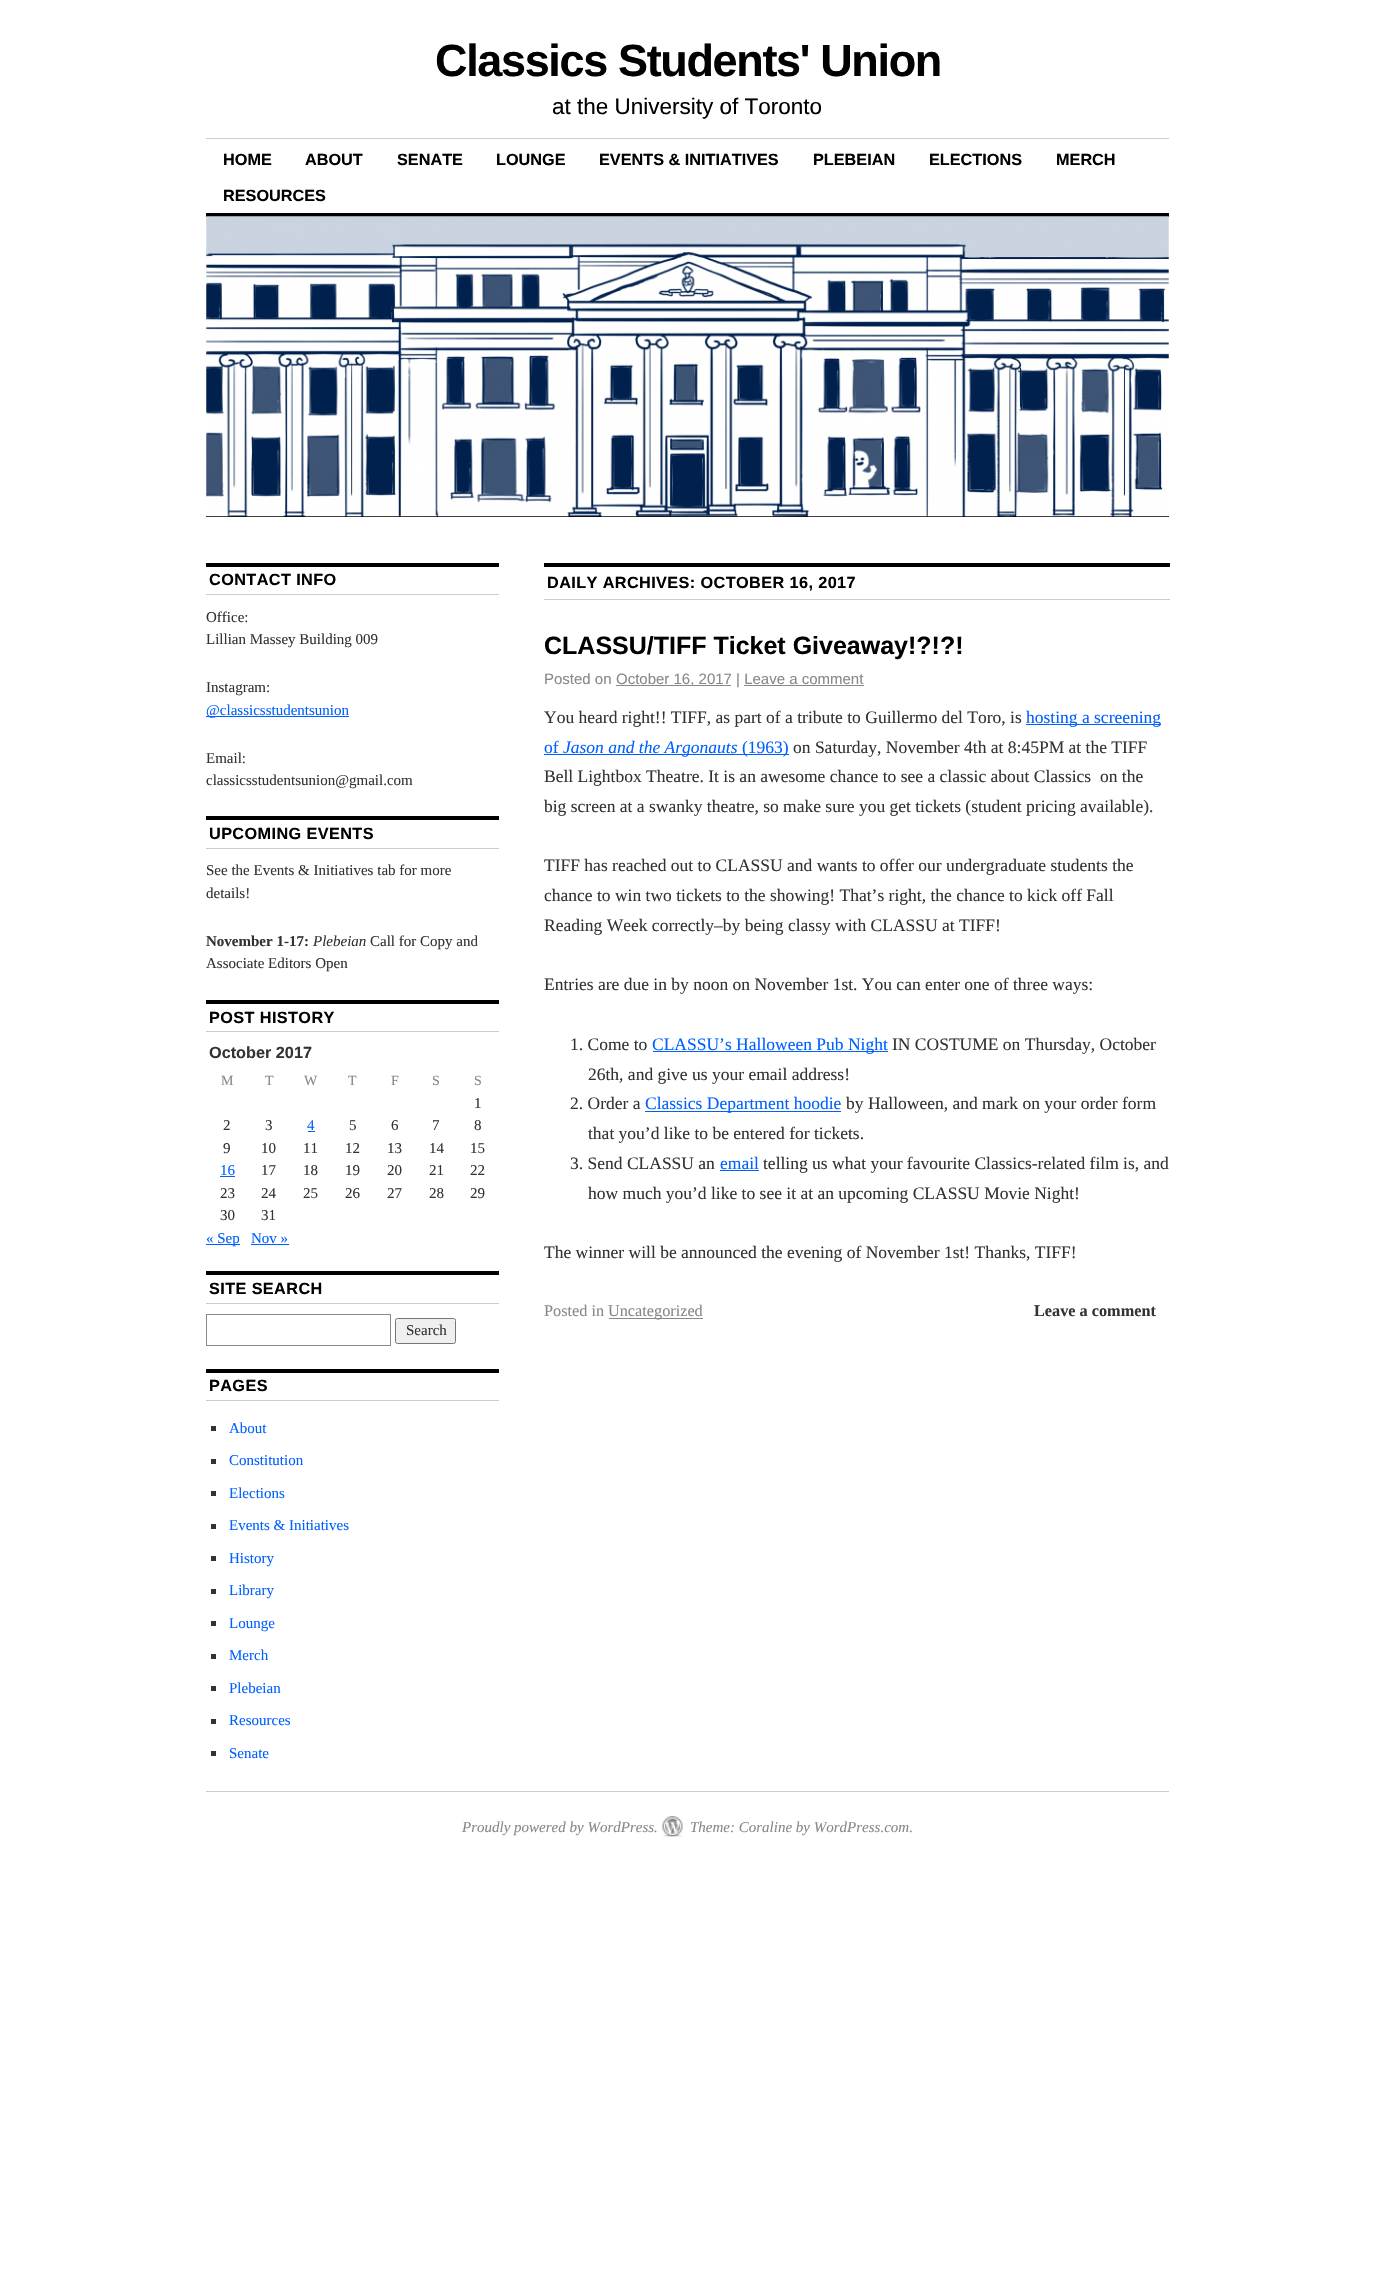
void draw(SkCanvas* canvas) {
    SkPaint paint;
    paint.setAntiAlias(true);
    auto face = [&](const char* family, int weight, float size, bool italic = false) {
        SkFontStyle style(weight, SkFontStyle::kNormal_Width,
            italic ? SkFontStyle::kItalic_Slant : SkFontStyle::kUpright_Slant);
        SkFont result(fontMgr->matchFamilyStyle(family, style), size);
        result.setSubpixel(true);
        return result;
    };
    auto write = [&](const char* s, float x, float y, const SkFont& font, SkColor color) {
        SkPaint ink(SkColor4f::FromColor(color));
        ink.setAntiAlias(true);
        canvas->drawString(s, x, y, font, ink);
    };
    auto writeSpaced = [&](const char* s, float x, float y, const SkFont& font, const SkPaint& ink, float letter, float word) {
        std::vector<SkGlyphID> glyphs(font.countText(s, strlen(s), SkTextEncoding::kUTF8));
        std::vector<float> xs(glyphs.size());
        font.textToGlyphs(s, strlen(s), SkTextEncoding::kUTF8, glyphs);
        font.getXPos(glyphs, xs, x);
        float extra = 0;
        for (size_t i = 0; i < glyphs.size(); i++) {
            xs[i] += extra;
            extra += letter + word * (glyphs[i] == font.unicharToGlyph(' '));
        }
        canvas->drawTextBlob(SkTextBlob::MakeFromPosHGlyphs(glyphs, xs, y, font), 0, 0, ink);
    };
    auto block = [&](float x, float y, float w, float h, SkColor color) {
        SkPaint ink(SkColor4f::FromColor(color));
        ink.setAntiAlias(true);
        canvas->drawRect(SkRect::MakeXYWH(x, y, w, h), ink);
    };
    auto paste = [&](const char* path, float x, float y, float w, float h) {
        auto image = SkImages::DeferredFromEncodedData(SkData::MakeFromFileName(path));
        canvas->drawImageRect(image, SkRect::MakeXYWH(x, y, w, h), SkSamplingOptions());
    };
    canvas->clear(SK_ColorWHITE);
    auto kFont1 = face("Liberation Sans", 700, 45);
    paint.setColor(SK_ColorBLACK);
    writeSpaced("Classics Students' Union", 435, 76, kFont1, paint, -1.35f, 0);
    auto kFont2 = face("Liberation Sans", 400, 22.5f);
    write("at the University of Toronto", 552, 114, kFont2, SK_ColorBLACK);
    block(206, 138, 963, 1, SkColorSetRGB(204, 204, 204));
    auto kFont3 = face("Liberation Sans", 700, 16.25f);
    write("HOME", 223, 165, kFont3, SK_ColorBLACK);
    write("ABOUT", 305, 165, kFont3, SK_ColorBLACK);
    write("SENATE", 397, 165, kFont3, SK_ColorBLACK);
    write("LOUNGE", 496, 165, kFont3, SK_ColorBLACK);
    write("EVENTS & INITIATIVES", 599, 165, kFont3, SK_ColorBLACK);
    write("PLEBEIAN", 813, 165, kFont3, SK_ColorBLACK);
    write("ELECTIONS", 929, 165, kFont3, SK_ColorBLACK);
    write("MERCH", 1056, 165, kFont3, SK_ColorBLACK);
    write("RESOURCES", 223, 201, kFont3, SK_ColorBLACK);
    block(206, 213, 963, 4, SK_ColorBLACK);
    block(206, 516, 963, 1, SK_ColorBLACK);
    paste("pic1.png", 206, 216, 963, 301);
    block(206, 563, 293, 4, SK_ColorBLACK);
    block(206, 594, 293, 1, SkColorSetRGB(204, 204, 204));
    writeSpaced("CONTACT INFO", 209, 585, kFont3, paint, 0.4f, 0);
    auto kFont4 = face("Liberation Serif", 400, 15);
    write("Office:", 206, 622, kFont4, SkColorSetRGB(51, 51, 51));
    write("Lillian Massey Building 009", 206, 644, kFont4, SkColorSetRGB(51, 51, 51));
    write("Instagram:", 206, 692, kFont4, SkColorSetRGB(51, 51, 51));
    block(206, 716, 143, 1, SkColorSetRGB(0, 96, 255));
    write("@classicsstudentsunion", 206, 715, kFont4, SkColorSetRGB(0, 96, 255));
    write("Email:", 206, 763, kFont4, SkColorSetRGB(51, 51, 51));
    write("classicsstudentsunion@gmail.com", 206, 785, kFont4, SkColorSetRGB(51, 51, 51));
    block(206, 816, 293, 4, SK_ColorBLACK);
    block(206, 848, 293, 1, SkColorSetRGB(204, 204, 204));
    writeSpaced("UPCOMING EVENTS", 209, 839, kFont3, paint, 0.4f, 0);
    write("See the Events & Initiatives tab for more", 206, 875, kFont4, SkColorSetRGB(51, 51, 51));
    write("details!", 206, 898, kFont4, SkColorSetRGB(51, 51, 51));
    auto kFont5 = face("Liberation Serif", 700, 15);
    write("November 1-17:", 206, 946, kFont5, SkColorSetRGB(51, 51, 51));
    auto kFont6 = face("Liberation Serif", 400, 15, true);
    write("Plebeian", 313, 946, kFont6, SkColorSetRGB(51, 51, 51));
    write("Call for Copy and", 370, 946, kFont4, SkColorSetRGB(51, 51, 51));
    write("Associate Editors Open", 206, 968, kFont4, SkColorSetRGB(51, 51, 51));
    block(206, 1000, 293, 4, SK_ColorBLACK);
    block(206, 1031, 293, 1, SkColorSetRGB(204, 204, 204));
    writeSpaced("POST HISTORY", 209, 1023, kFont3, paint, 0.4f, 0);
    write("October 2017", 209, 1058, kFont3, SkColorSetRGB(51, 51, 51));
    auto kFont7 = face("Liberation Serif", 400, 14);
    write("M", 221, 1085, kFont7, SkColorSetRGB(136, 136, 136));
    write("T", 265, 1085, kFont7, SkColorSetRGB(136, 136, 136));
    write("W", 304, 1085, kFont7, SkColorSetRGB(136, 136, 136));
    write("T", 348, 1085, kFont7, SkColorSetRGB(136, 136, 136));
    write("F", 391, 1085, kFont7, SkColorSetRGB(136, 136, 136));
    write("S", 432, 1085, kFont7, SkColorSetRGB(136, 136, 136));
    write("S", 474, 1085, kFont7, SkColorSetRGB(136, 136, 136));
    write("1", 474, 1108, kFont4, SkColorSetRGB(51, 51, 51));
    write("2", 223, 1130, kFont4, SkColorSetRGB(51, 51, 51));
    write("3", 265, 1130, kFont4, SkColorSetRGB(51, 51, 51));
    write("4", 307, 1130, kFont4, SkColorSetRGB(0, 96, 255));
    block(308, 1131, 7, 1, SkColorSetRGB(0, 96, 255));
    write("5", 349, 1130, kFont4, SkColorSetRGB(51, 51, 51));
    write("6", 391, 1130, kFont4, SkColorSetRGB(51, 51, 51));
    write("7", 432, 1130, kFont4, SkColorSetRGB(51, 51, 51));
    write("8", 474, 1130, kFont4, SkColorSetRGB(51, 51, 51));
    write("9", 223, 1153, kFont4, SkColorSetRGB(51, 51, 51));
    write("10", 261, 1153, kFont4, SkColorSetRGB(51, 51, 51));
    write("11", 303, 1153, kFont4, SkColorSetRGB(51, 51, 51));
    write("12", 345, 1153, kFont4, SkColorSetRGB(51, 51, 51));
    write("13", 387, 1153, kFont4, SkColorSetRGB(51, 51, 51));
    write("14", 429, 1153, kFont4, SkColorSetRGB(51, 51, 51));
    write("15", 470, 1153, kFont4, SkColorSetRGB(51, 51, 51));
    write("16", 220, 1175, kFont4, SkColorSetRGB(0, 96, 255));
    block(220, 1176, 15, 1, SkColorSetRGB(0, 96, 255));
    write("17", 261, 1175, kFont4, SkColorSetRGB(51, 51, 51));
    write("18", 303, 1175, kFont4, SkColorSetRGB(51, 51, 51));
    write("19", 345, 1175, kFont4, SkColorSetRGB(51, 51, 51));
    write("20", 387, 1175, kFont4, SkColorSetRGB(51, 51, 51));
    write("21", 429, 1175, kFont4, SkColorSetRGB(51, 51, 51));
    write("22", 470, 1175, kFont4, SkColorSetRGB(51, 51, 51));
    write("23", 220, 1198, kFont4, SkColorSetRGB(51, 51, 51));
    write("24", 261, 1198, kFont4, SkColorSetRGB(51, 51, 51));
    write("25", 303, 1198, kFont4, SkColorSetRGB(51, 51, 51));
    write("26", 345, 1198, kFont4, SkColorSetRGB(51, 51, 51));
    write("27", 387, 1198, kFont4, SkColorSetRGB(51, 51, 51));
    write("28", 429, 1198, kFont4, SkColorSetRGB(51, 51, 51));
    write("29", 470, 1198, kFont4, SkColorSetRGB(51, 51, 51));
    write("30", 220, 1220, kFont4, SkColorSetRGB(51, 51, 51));
    write("31", 261, 1220, kFont4, SkColorSetRGB(51, 51, 51));
    block(206, 1244, 34, 1, SkColorSetRGB(0, 96, 255));
    write("« Sep", 206, 1243, kFont4, SkColorSetRGB(0, 96, 255));
    write("Nov »", 251, 1243, kFont4, SkColorSetRGB(0, 96, 255));
    block(251, 1244, 38, 1, SkColorSetRGB(0, 96, 255));
    block(206, 1271, 293, 4, SK_ColorBLACK);
    block(206, 1303, 293, 1, SkColorSetRGB(204, 204, 204));
    writeSpaced("SITE SEARCH", 209, 1294, kFont3, paint, 0.4f, 0);
    paint.setStyle(SkPaint::kStroke_Style);
    paint.setStrokeWidth(1);
    paint.setColor(SkColorSetRGB(136, 136, 136));
    canvas->drawRect(SkRect::MakeXYWH(206.5f, 1314.5f, 184, 31), paint);
    paint.setStyle(SkPaint::kFill_Style);
    paint.setColor(SkColorSetRGB(239, 239, 239));
    canvas->drawRoundRect(SkRect::MakeXYWH(395.5f, 1318.5f, 60, 25), 2, 2, paint);
    paint.setStyle(SkPaint::kStroke_Style);
    paint.setColor(SkColorSetRGB(118, 118, 118));
    canvas->drawRoundRect(SkRect::MakeXYWH(395.5f, 1318.5f, 60, 25), 2, 2, paint);
    write("Search", 406, 1335, kFont4, SkColorSetRGB(51, 51, 51));
    block(206, 1369, 293, 4, SK_ColorBLACK);
    block(206, 1400, 293, 1, SkColorSetRGB(204, 204, 204));
    paint.setStyle(SkPaint::kFill_Style);
    paint.setColor(SK_ColorBLACK);
    writeSpaced("PAGES", 209, 1391, kFont3, paint, 0.4f, 0);
    block(211, 1426, 5, 5, SkColorSetRGB(51, 51, 51));
    write("About", 229, 1433, kFont4, SkColorSetRGB(0, 96, 255));
    block(211, 1459, 5, 5, SkColorSetRGB(51, 51, 51));
    write("Constitution", 229, 1465, kFont4, SkColorSetRGB(0, 96, 255));
    block(211, 1491, 5, 5, SkColorSetRGB(51, 51, 51));
    write("Elections", 229, 1498, kFont4, SkColorSetRGB(0, 96, 255));
    block(211, 1524, 5, 5, SkColorSetRGB(51, 51, 51));
    write("Events & Initiatives", 229, 1530, kFont4, SkColorSetRGB(0, 96, 255));
    block(211, 1556, 5, 5, SkColorSetRGB(51, 51, 51));
    write("History", 229, 1563, kFont4, SkColorSetRGB(0, 96, 255));
    block(211, 1589, 5, 5, SkColorSetRGB(51, 51, 51));
    write("Library", 229, 1595, kFont4, SkColorSetRGB(0, 96, 255));
    block(211, 1621, 5, 5, SkColorSetRGB(51, 51, 51));
    write("Lounge", 229, 1628, kFont4, SkColorSetRGB(0, 96, 255));
    block(211, 1654, 5, 5, SkColorSetRGB(51, 51, 51));
    write("Merch", 229, 1660, kFont4, SkColorSetRGB(0, 96, 255));
    block(211, 1686, 5, 5, SkColorSetRGB(51, 51, 51));
    write("Plebeian", 229, 1693, kFont4, SkColorSetRGB(0, 96, 255));
    block(211, 1719, 5, 5, SkColorSetRGB(51, 51, 51));
    write("Resources", 229, 1725, kFont4, SkColorSetRGB(0, 96, 255));
    block(211, 1751, 5, 5, SkColorSetRGB(51, 51, 51));
    write("Senate", 229, 1758, kFont4, SkColorSetRGB(0, 96, 255));
    block(544, 563, 626, 4, SK_ColorBLACK);
    block(544, 599, 626, 1, SkColorSetRGB(204, 204, 204));
    writeSpaced("DAILY ARCHIVES: OCTOBER 16, 2017", 547, 588, kFont3, paint, 0.4f, 0);
    auto kFont8 = face("Liberation Sans", 700, 25);
    write("CLASSU/TIFF Ticket Giveaway!?!?!", 544, 654, kFont8, SK_ColorBLACK);
    auto kFont9 = face("Liberation Sans", 400, 15);
    write("Posted on", 544, 684, kFont9, SkColorSetRGB(136, 136, 136));
    block(616, 685, 115, 1, SkColorSetRGB(136, 136, 136));
    write("October 16, 2017 | Leave a comment", 616, 684, kFont9, SkColorSetRGB(136, 136, 136));
    block(744, 685, 120, 1, SkColorSetRGB(136, 136, 136));
    auto kFont10 = face("Liberation Serif", 400, 17.5f);
    write("You heard right!! TIFF, as part of a tribute to Guillermo del Toro, is", 544, 723, kFont10, SkColorSetRGB(51, 51, 51));
    block(1026, 724, 135, 1, SkColorSetRGB(0, 96, 255));
    write("hosting a screening", 1026, 723, kFont10, SkColorSetRGB(0, 96, 255));
    write("of", 544, 753, kFont10, SkColorSetRGB(0, 96, 255));
    block(544, 754, 245, 1, SkColorSetRGB(0, 96, 255));
    auto kFont11 = face("Liberation Serif", 400, 17.5f, true);
    write("Jason and the Argonauts", 563, 753, kFont11, SkColorSetRGB(0, 96, 255));
    write("(1963)", 742, 753, kFont10, SkColorSetRGB(0, 96, 255));
    write("on Saturday, November 4th at 8:45PM at the TIFF", 793, 753, kFont10, SkColorSetRGB(51, 51, 51));
    write("Bell Lightbox Theatre. It is an awesome chance to see a classic about Classics  on the", 544, 782, kFont10, SkColorSetRGB(51, 51, 51));
    write("big screen at a swanky theatre, so make sure you get tickets (student pricing available).", 544, 812, kFont10, SkColorSetRGB(51, 51, 51));
    write("TIFF has reached out to CLASSU and wants to offer our undergraduate students the", 544, 871, kFont10, SkColorSetRGB(51, 51, 51));
    write("chance to win two tickets to the showing! That’s right, the chance to kick off Fall", 544, 901, kFont10, SkColorSetRGB(51, 51, 51));
    write("Reading Week correctly–by being classy with CLASSU at TIFF!", 544, 931, kFont10, SkColorSetRGB(51, 51, 51));
    write("Entries are due in by noon on November 1st. You can enter one of three ways:", 544, 990, kFont10, SkColorSetRGB(51, 51, 51));
    write("1. Come to", 570, 1050, kFont10, SkColorSetRGB(51, 51, 51));
    block(653, 1051, 235, 1, SkColorSetRGB(0, 96, 255));
    write("CLASSU’s Halloween Pub Night", 652, 1050, kFont10, SkColorSetRGB(0, 96, 255));
    write("IN COSTUME on Thursday, October", 892, 1050, kFont10, SkColorSetRGB(51, 51, 51));
    write("26th, and give us your email address!", 588, 1080, kFont10, SkColorSetRGB(51, 51, 51));
    write("2. Order a", 570, 1109, kFont10, SkColorSetRGB(51, 51, 51));
    block(645, 1111, 196, 1, SkColorSetRGB(0, 96, 255));
    write("Classics Department hoodie", 645, 1109, kFont10, SkColorSetRGB(0, 96, 255));
    write("by Halloween, and mark on your order form", 846, 1109, kFont10, SkColorSetRGB(51, 51, 51));
    write("that you’d like to be entered for tickets.", 588, 1139, kFont10, SkColorSetRGB(51, 51, 51));
    write("3. Send CLASSU an", 570, 1169, kFont10, SkColorSetRGB(51, 51, 51));
    write("email", 720, 1169, kFont10, SkColorSetRGB(0, 96, 255));
    block(720, 1170, 39, 1, SkColorSetRGB(0, 96, 255));
    write("telling us what your favourite Classics-related film is, and", 763, 1169, kFont10, SkColorSetRGB(51, 51, 51));
    write("how much you’d like to see it at an upcoming CLASSU Movie Night!", 588, 1199, kFont10, SkColorSetRGB(51, 51, 51));
    write("The winner will be announced the evening of November 1st! Thanks, TIFF!", 544, 1258, kFont10, SkColorSetRGB(51, 51, 51));
    auto kFont12 = face("Liberation Serif", 400, 16.25f);
    write("Posted in", 544, 1316, kFont12, SkColorSetRGB(136, 136, 136));
    block(609, 1318, 94, 1, SkColorSetRGB(136, 136, 136));
    write("Uncategorized", 608, 1316, kFont12, SkColorSetRGB(136, 136, 136));
    auto kFont13 = face("Liberation Serif", 700, 16.25f);
    write("Leave a comment", 1034, 1316, kFont13, SkColorSetRGB(51, 51, 51));
    block(206, 1791, 963, 1, SkColorSetRGB(204, 204, 204));
    paste("pic2.png", 662, 1816, 21, 21);
    write("Proudly powered by WordPress.", 462, 1832, kFont6, SkColorSetRGB(136, 136, 136));
    write("Theme: Coraline by WordPress.com.", 690, 1832, kFont6, SkColorSetRGB(136, 136, 136));
}
